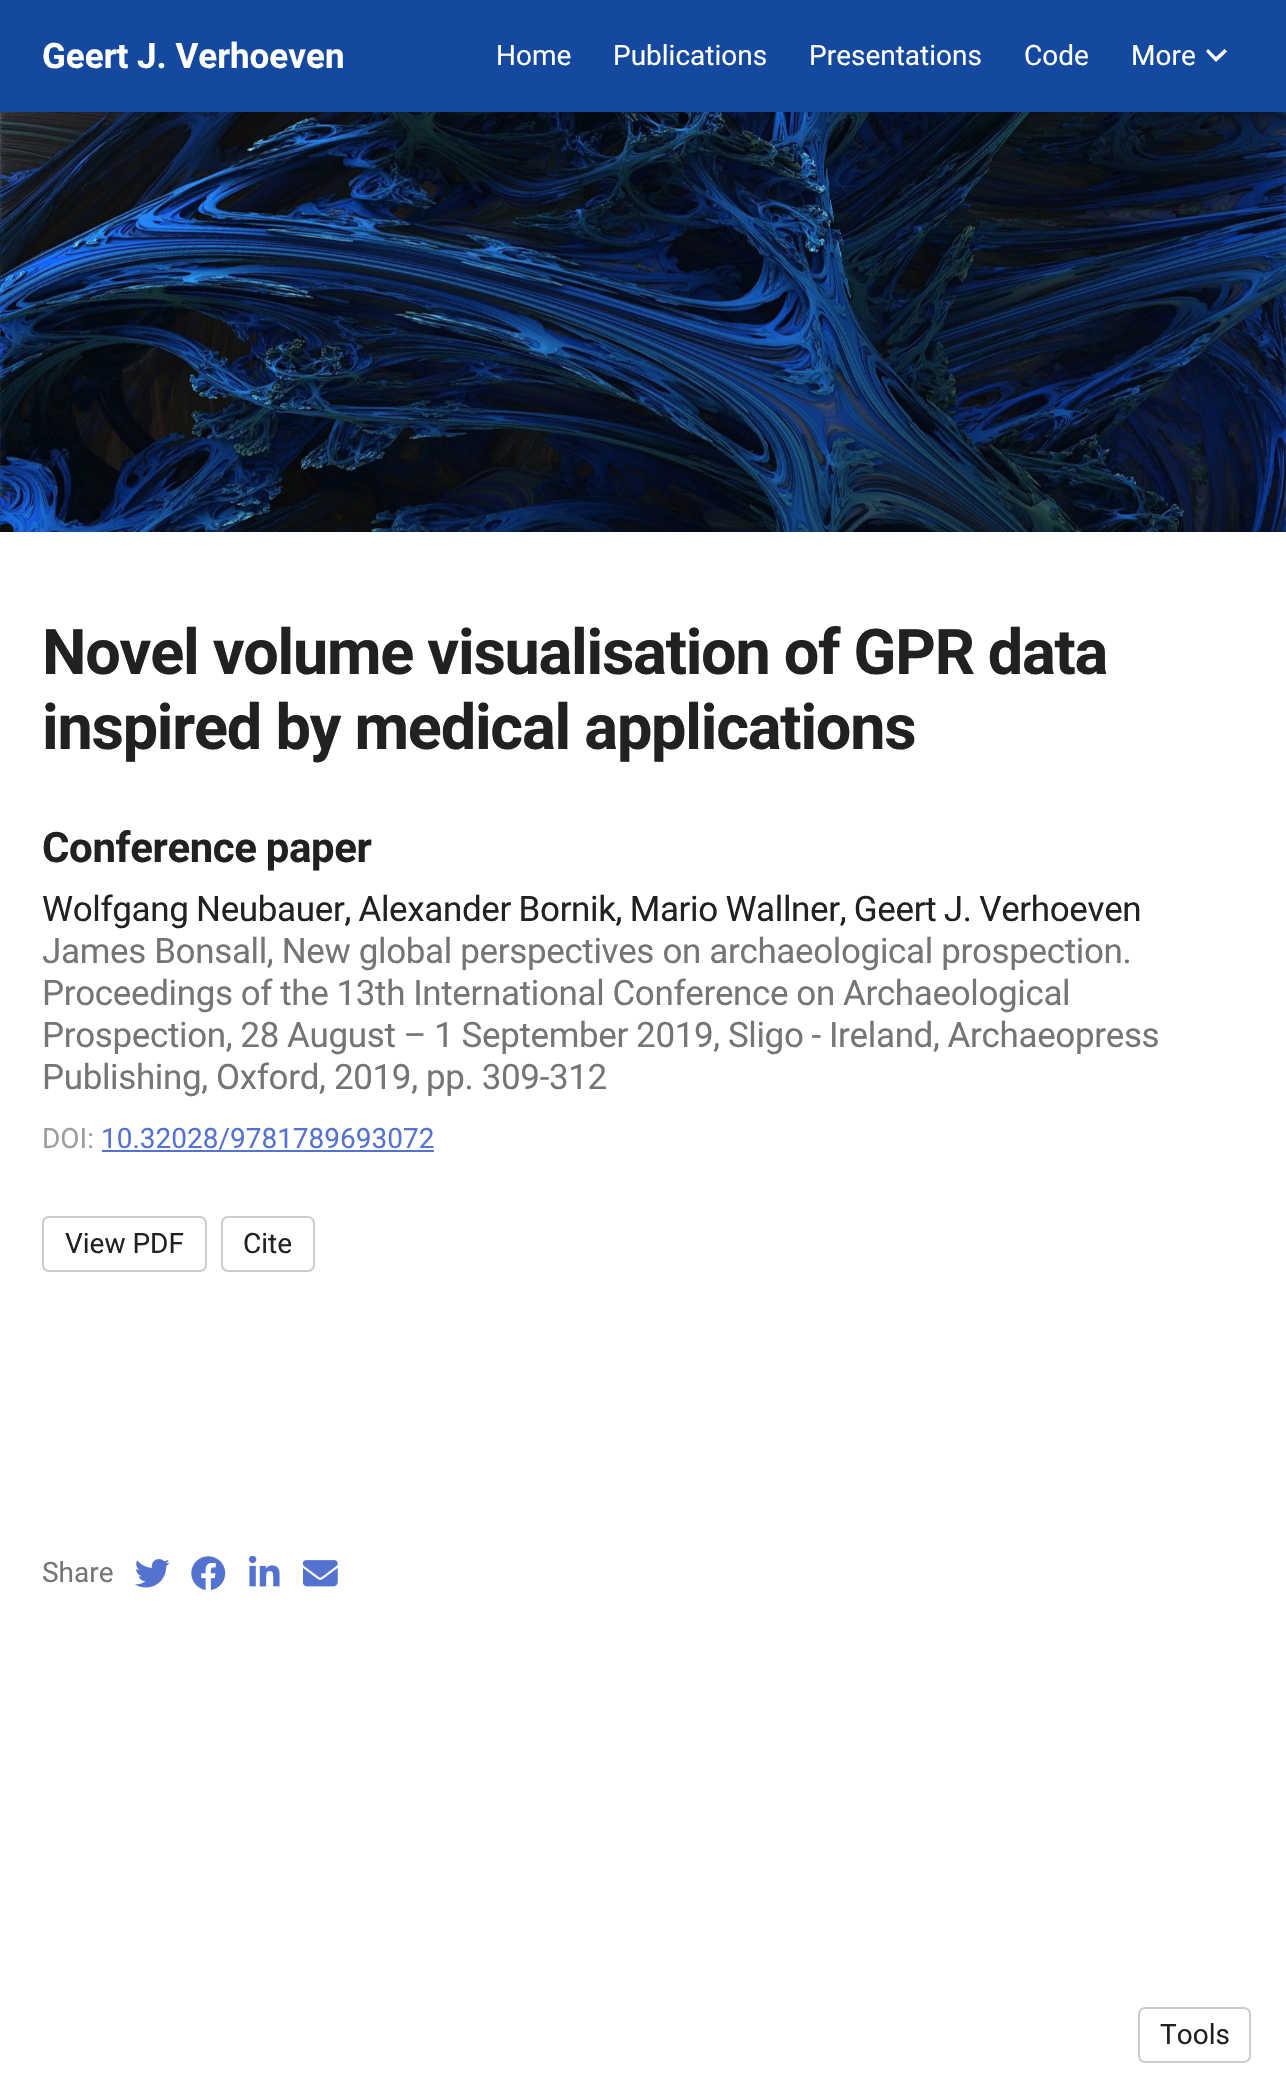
void draw(SkCanvas* canvas) {
    SkPaint paint;
    paint.setAntiAlias(true);
    auto face = [&](const char* family, int weight, float size, bool italic = false) {
        SkFontStyle style(weight, SkFontStyle::kNormal_Width,
            italic ? SkFontStyle::kItalic_Slant : SkFontStyle::kUpright_Slant);
        SkFont result(fontMgr->matchFamilyStyle(family, style), size);
        result.setSubpixel(true);
        return result;
    };
    auto write = [&](const char* s, float x, float y, const SkFont& font, SkColor color) {
        SkPaint ink(SkColor4f::FromColor(color));
        ink.setAntiAlias(true);
        canvas->drawString(s, x, y, font, ink);
    };
    auto writeSpaced = [&](const char* s, float x, float y, const SkFont& font, const SkPaint& ink, float letter, float word) {
        std::vector<SkGlyphID> glyphs(font.countText(s, strlen(s), SkTextEncoding::kUTF8));
        std::vector<float> xs(glyphs.size());
        font.textToGlyphs(s, strlen(s), SkTextEncoding::kUTF8, glyphs);
        font.getXPos(glyphs, xs, x);
        float extra = 0;
        for (size_t i = 0; i < glyphs.size(); i++) {
            xs[i] += extra;
            extra += letter + word * (glyphs[i] == font.unicharToGlyph(' '));
        }
        canvas->drawTextBlob(SkTextBlob::MakeFromPosHGlyphs(glyphs, xs, y, font), 0, 0, ink);
    };
    auto block = [&](float x, float y, float w, float h, SkColor color) {
        SkPaint ink(SkColor4f::FromColor(color));
        ink.setAntiAlias(true);
        canvas->drawRect(SkRect::MakeXYWH(x, y, w, h), ink);
    };
    auto paste = [&](const char* path, float x, float y, float w, float h) {
        auto image = SkImages::DeferredFromEncodedData(SkData::MakeFromFileName(path));
        canvas->drawImageRect(image, SkRect::MakeXYWH(x, y, w, h), SkSamplingOptions());
    };
    canvas->clear(SK_ColorWHITE);
    block(0, 0, 1286, 112, SkColorSetRGB(20, 73, 159));
    auto kFont1 = face("Roboto", 700, 35);
    write("Geert J. Verhoeven", 42, 68, kFont1, SK_ColorWHITE);
    auto kFont2 = face("Roboto", 400, 28);
    write("Home", 496, 65, kFont2, SK_ColorWHITE);
    write("Publications", 613, 65, kFont2, SK_ColorWHITE);
    write("Presentations", 809, 65, kFont2, SK_ColorWHITE);
    write("Code", 1024, 65, kFont2, SK_ColorWHITE);
    write("More", 1131, 65, kFont2, SK_ColorWHITE);
    paint.setColor(SK_ColorWHITE);
    canvas->drawPath(SkPathBuilder().moveTo(1216, 62).lineTo(1206, 51.5f).lineTo(1208, 49).lineTo(1216, 57).lineTo(1224.5f, 49).lineTo(1227, 51.5f).close().detach(), paint);
    paste("pic1.png", 0, 112, 1286, 420);
    auto kFont3 = face("Roboto", 700, 63);
    paint.setColor(SkColorSetRGB(33, 33, 33));
    writeSpaced("Novel volume visualisation of GPR data", 42, 674, kFont3, paint, -1.25f, -0.25f);
    writeSpaced("inspired by medical applications", 42, 749, kFont3, paint, -1.25f, 0);
    auto kFont4 = face("Roboto", 700, 42);
    writeSpaced("Conference paper", 42, 862, kFont4, paint, -0.4f, -1);
    auto kFont5 = face("Roboto", 400, 35);
    writeSpaced("Wolfgang Neubauer, Alexander Bornik, Mario Wallner, Geert J. Verhoeven", 42, 921, kFont5, paint, -0.35f, -0.75f);
    paint.setColor(SkColorSetRGB(117, 117, 117));
    writeSpaced("James Bonsall, New global perspectives on archaeological prospection.", 42, 963, kFont5, paint, -0.35f, 0);
    writeSpaced("Proceedings of the 13th International Conference on Archaeological", 42, 1005, kFont5, paint, -0.35f, -0.25f);
    writeSpaced("Prospection, 28 August – 1 September 2019, Sligo - Ireland, Archaeopress", 42, 1047, kFont5, paint, -0.35f, -0.25f);
    writeSpaced("Publishing, Oxford, 2019, pp. 309-312", 42, 1089, kFont5, paint, -0.35f, 0);
    write("DOI:", 42, 1148, kFont2, SkColorSetRGB(158, 158, 158));
    write("10.32028/9781789693072", 101, 1148, kFont2, SkColorSetRGB(84, 114, 207));
    block(102, 1150, 332, 2, SkColorSetRGB(84, 114, 207));
    paint.setStyle(SkPaint::kStroke_Style);
    paint.setStrokeWidth(2);
    paint.setColor(SkColorSetRGB(204, 204, 204));
    canvas->drawRoundRect(SkRect::MakeXYWH(43, 1217, 163, 54), 6, 6, paint);
    write("View PDF", 65, 1253, kFont2, SkColorSetRGB(33, 33, 33));
    canvas->drawRoundRect(SkRect::MakeXYWH(222, 1217, 92, 54), 6, 6, paint);
    write("Cite", 243, 1253, kFont2, SkColorSetRGB(33, 33, 33));
    write("Share", 42, 1582, kFont2, SkColorSetRGB(117, 117, 117));
    paste("pic2.png", 135, 1559, 35, 29);
    paste("pic3.png", 191, 1556, 35, 34);
    paste("pic4.png", 249, 1556, 31, 31);
    paste("pic5.png", 303, 1560, 35, 27);
    canvas->drawRoundRect(SkRect::MakeXYWH(1139, 2008, 111, 54), 6, 6, paint);
    write("Tools", 1160, 2044, kFont2, SkColorSetRGB(33, 33, 33));
}
